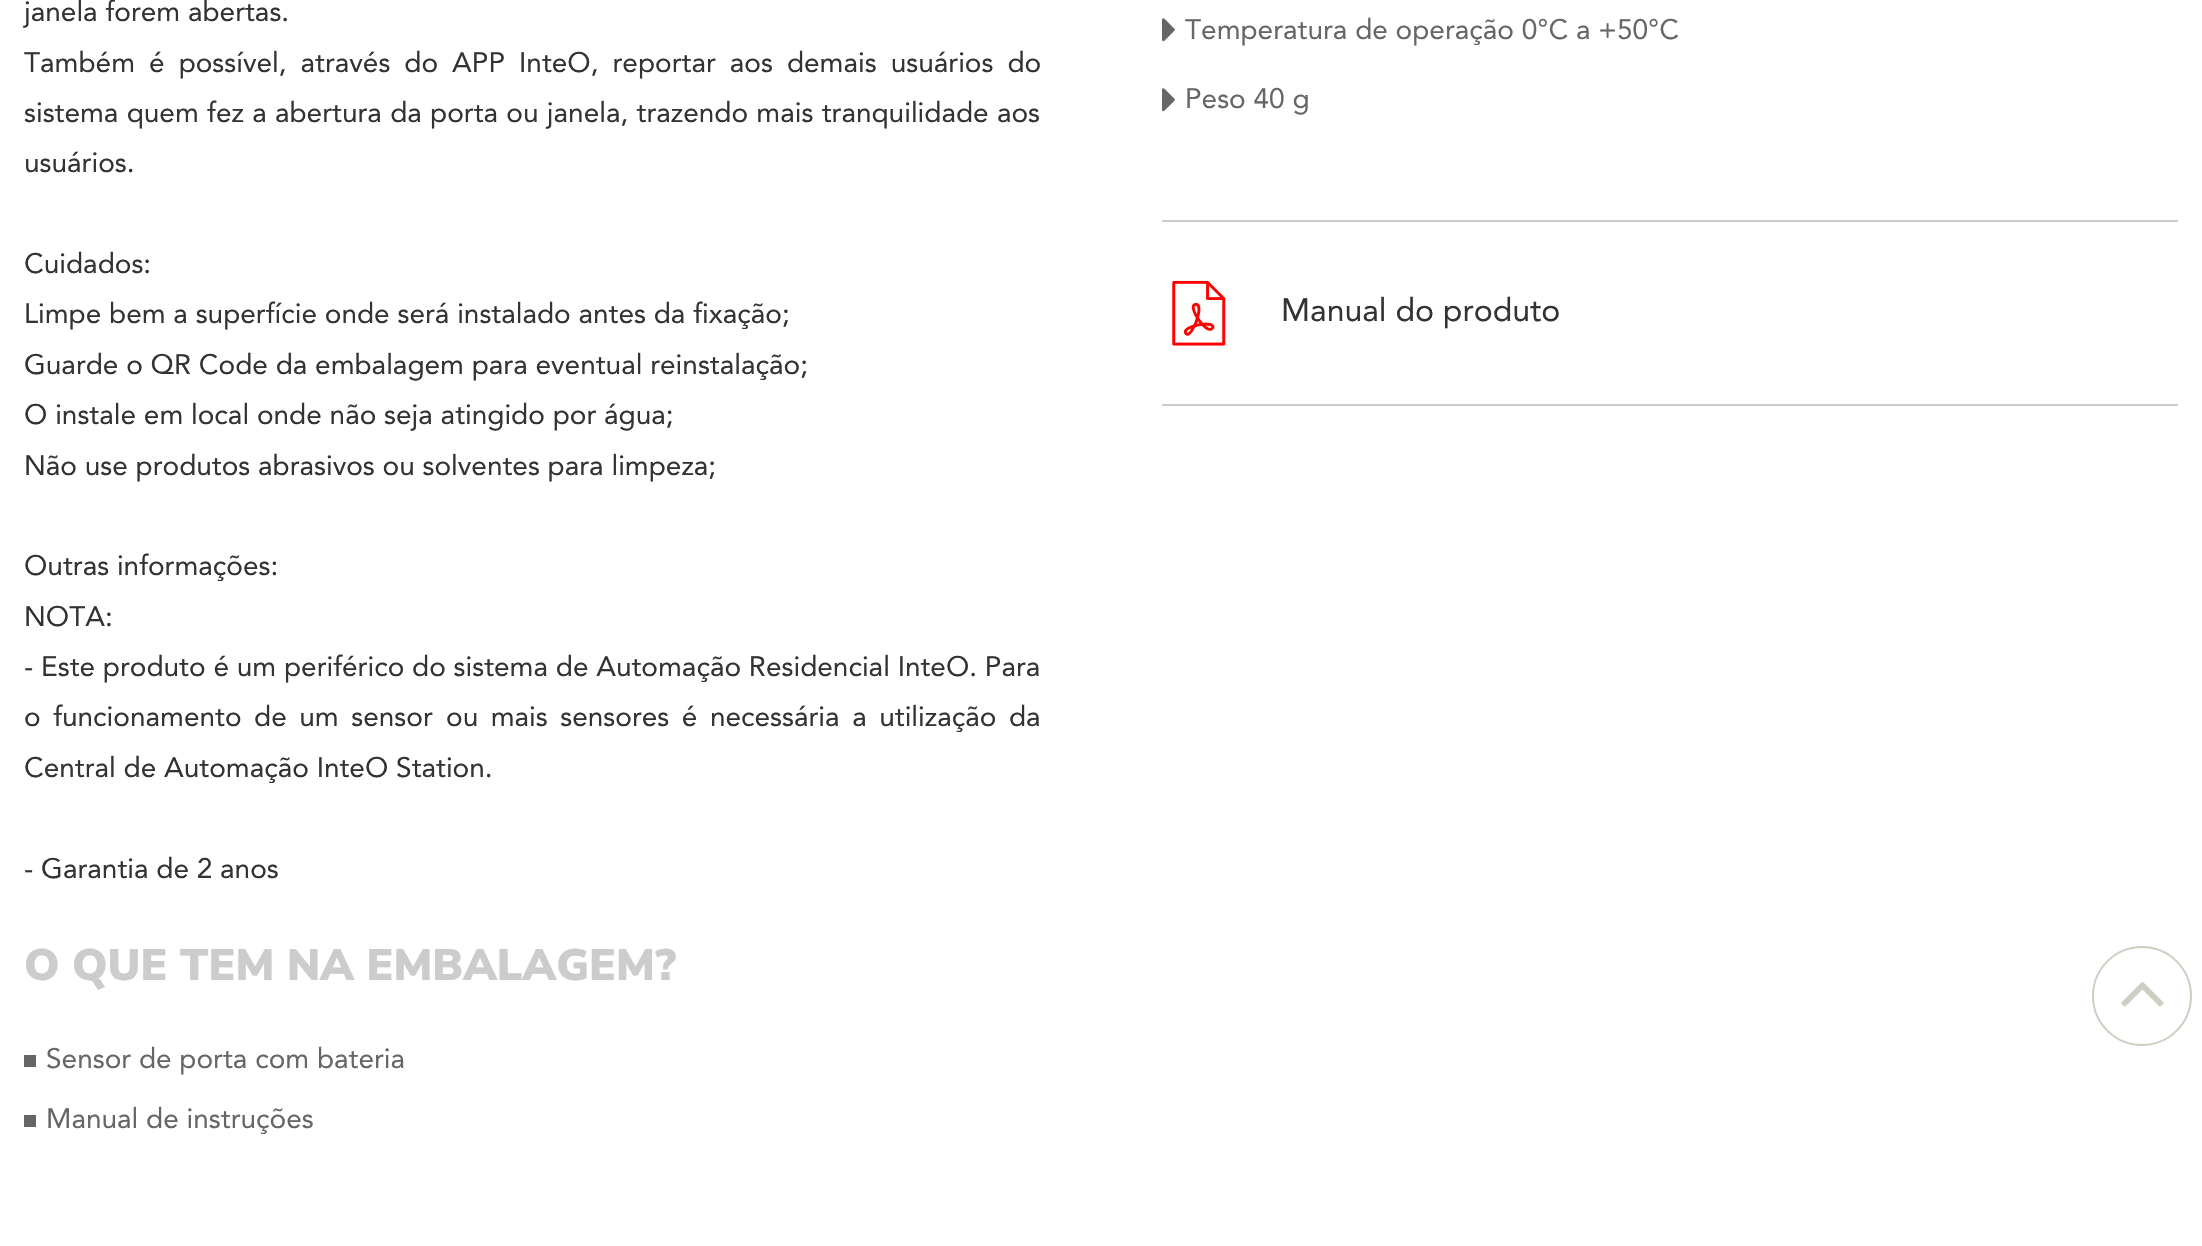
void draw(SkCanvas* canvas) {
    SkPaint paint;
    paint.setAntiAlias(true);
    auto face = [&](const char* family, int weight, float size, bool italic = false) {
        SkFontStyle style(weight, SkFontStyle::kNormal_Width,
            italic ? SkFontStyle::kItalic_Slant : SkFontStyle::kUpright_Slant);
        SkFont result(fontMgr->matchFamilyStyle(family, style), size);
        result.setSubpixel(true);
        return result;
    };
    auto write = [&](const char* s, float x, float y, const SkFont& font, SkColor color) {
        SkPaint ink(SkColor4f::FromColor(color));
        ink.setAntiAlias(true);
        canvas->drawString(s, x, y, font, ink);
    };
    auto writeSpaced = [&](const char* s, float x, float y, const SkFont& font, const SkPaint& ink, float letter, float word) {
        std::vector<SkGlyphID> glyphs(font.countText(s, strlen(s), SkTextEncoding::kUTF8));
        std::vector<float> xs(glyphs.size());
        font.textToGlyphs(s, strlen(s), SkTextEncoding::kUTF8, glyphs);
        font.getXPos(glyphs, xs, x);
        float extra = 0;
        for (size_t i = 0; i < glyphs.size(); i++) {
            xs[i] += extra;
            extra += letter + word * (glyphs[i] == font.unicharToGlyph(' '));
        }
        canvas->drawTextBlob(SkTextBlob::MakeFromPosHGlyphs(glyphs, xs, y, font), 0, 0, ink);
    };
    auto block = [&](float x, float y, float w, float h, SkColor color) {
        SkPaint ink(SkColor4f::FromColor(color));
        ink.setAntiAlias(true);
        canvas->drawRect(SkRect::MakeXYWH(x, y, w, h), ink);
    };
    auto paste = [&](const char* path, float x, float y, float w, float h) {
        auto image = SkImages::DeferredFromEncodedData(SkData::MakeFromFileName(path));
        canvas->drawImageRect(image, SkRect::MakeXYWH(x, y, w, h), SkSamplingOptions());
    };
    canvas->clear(SK_ColorWHITE);
    auto kFont1 = face("Avenir", 400, 28);
    write("janela forem abertas.", 24, 21, kFont1, SkColorSetRGB(51, 51, 51));
    paint.setColor(SkColorSetRGB(51, 51, 51));
    writeSpaced("Também é possível, através do APP InteO, reportar aos demais usuários do", 24, 72, kFont1, paint, 0, 6.25f);
    writeSpaced("sistema quem fez a abertura da porta ou janela, trazendo mais tranquilidade aos", 24, 122, kFont1, paint, 0, 0.5f);
    write("usuários.", 24, 172, kFont1, SkColorSetRGB(51, 51, 51));
    write("Cuidados:", 24, 273, kFont1, SkColorSetRGB(51, 51, 51));
    write("Limpe bem a superfície onde será instalado antes da fixação;", 24, 323, kFont1, SkColorSetRGB(51, 51, 51));
    write("Guarde o QR Code da embalagem para eventual reinstalação;", 24, 374, kFont1, SkColorSetRGB(51, 51, 51));
    write("O instale em local onde não seja atingido por água;", 24, 424, kFont1, SkColorSetRGB(51, 51, 51));
    write("Não use produtos abrasivos ou solventes para limpeza;", 24, 475, kFont1, SkColorSetRGB(51, 51, 51));
    write("Outras informações:", 24, 575, kFont1, SkColorSetRGB(51, 51, 51));
    write("NOTA:", 24, 626, kFont1, SkColorSetRGB(51, 51, 51));
    write("- Este produto é um periférico do sistema de Automação Residencial InteO. Para", 24, 676, kFont1, SkColorSetRGB(51, 51, 51));
    writeSpaced("o funcionamento de um sensor", 24, 726, kFont1, paint, 0, 4.75f);
    writeSpaced("ou mais sensores é necessária a utilização da", 446, 726, kFont1, paint, 0, 4.75f);
    write("Central de Automação InteO Station.", 24, 777, kFont1, SkColorSetRGB(51, 51, 51));
    write("- Garantia de 2 anos", 24, 878, kFont1, SkColorSetRGB(51, 51, 51));
    auto kFont2 = face("Nunito Sans", 900, 44);
    write("O QUE TEM NA EMBALAGEM?", 24, 980, kFont2, SkColorSetRGB(204, 204, 204));
    block(24, 1055, 12, 12, SkColorSetRGB(102, 102, 102));
    write("Sensor de porta com bateria", 46, 1068, kFont1, SkColorSetRGB(102, 102, 102));
    block(24, 1115, 12, 12, SkColorSetRGB(102, 102, 102));
    write("Manual de instruções", 46, 1128, kFont1, SkColorSetRGB(102, 102, 102));
    paste("pic1.png", 1162, 18, 13, 24);
    write("Temperatura de operação 0°C a +50°C", 1185, 39, kFont1, SkColorSetRGB(102, 102, 102));
    paste("pic1.png", 1162, 88, 13, 24);
    write("Peso 40 g", 1185, 108, kFont1, SkColorSetRGB(102, 102, 102));
    block(1162, 220, 1016, 2, SkColorSetRGB(204, 204, 204));
    block(1162, 404, 1016, 2, SkColorSetRGB(204, 204, 204));
    paste("pic2.png", 1172, 280, 54, 66);
    auto kFont3 = face("Avenir", 400, 32);
    write("Manual do produto", 1281, 321, kFont3, SkColorSetRGB(51, 51, 51));
    paint.setStyle(SkPaint::kStroke_Style);
    paint.setStrokeWidth(2);
    paint.setColor(SkColorSetRGB(206, 206, 194));
    canvas->drawCircle(2142, 996, 49, paint);
    paste("pic3.png", 2121, 982, 43, 25);
}
